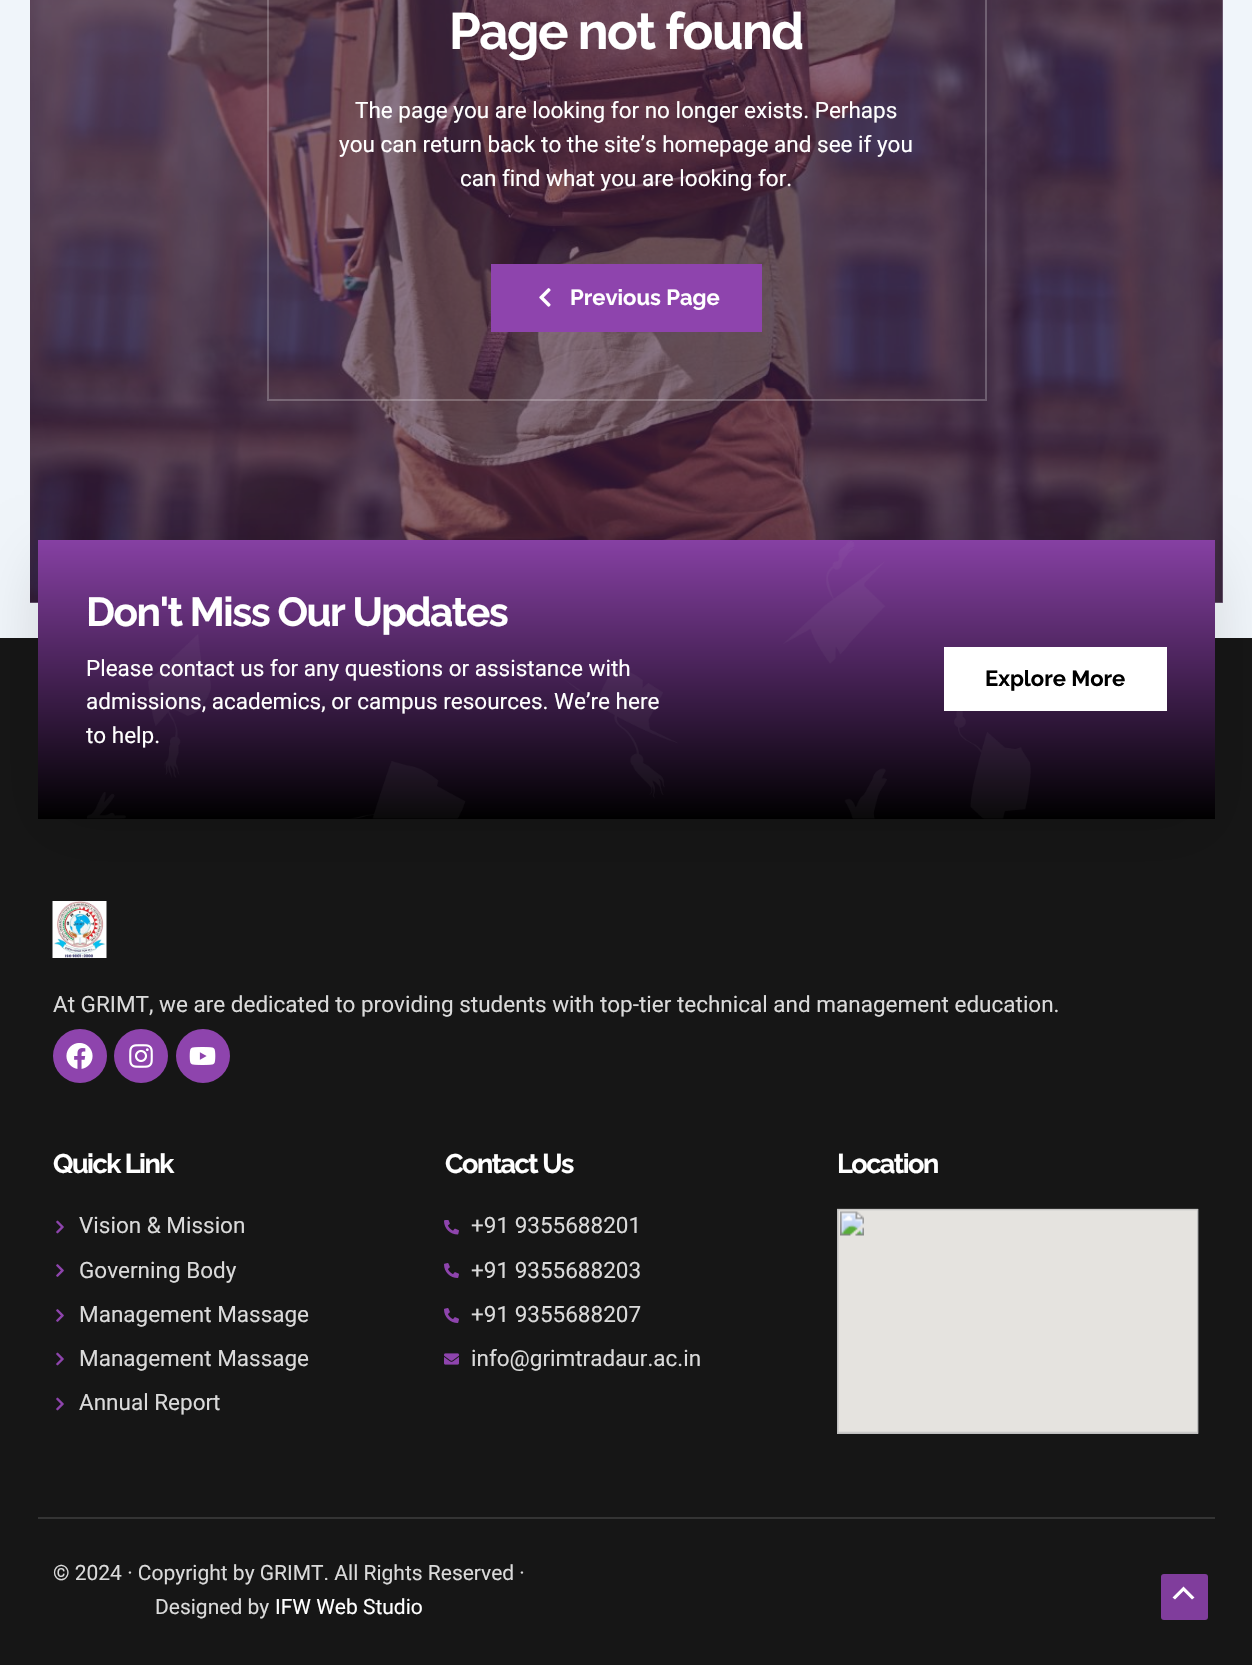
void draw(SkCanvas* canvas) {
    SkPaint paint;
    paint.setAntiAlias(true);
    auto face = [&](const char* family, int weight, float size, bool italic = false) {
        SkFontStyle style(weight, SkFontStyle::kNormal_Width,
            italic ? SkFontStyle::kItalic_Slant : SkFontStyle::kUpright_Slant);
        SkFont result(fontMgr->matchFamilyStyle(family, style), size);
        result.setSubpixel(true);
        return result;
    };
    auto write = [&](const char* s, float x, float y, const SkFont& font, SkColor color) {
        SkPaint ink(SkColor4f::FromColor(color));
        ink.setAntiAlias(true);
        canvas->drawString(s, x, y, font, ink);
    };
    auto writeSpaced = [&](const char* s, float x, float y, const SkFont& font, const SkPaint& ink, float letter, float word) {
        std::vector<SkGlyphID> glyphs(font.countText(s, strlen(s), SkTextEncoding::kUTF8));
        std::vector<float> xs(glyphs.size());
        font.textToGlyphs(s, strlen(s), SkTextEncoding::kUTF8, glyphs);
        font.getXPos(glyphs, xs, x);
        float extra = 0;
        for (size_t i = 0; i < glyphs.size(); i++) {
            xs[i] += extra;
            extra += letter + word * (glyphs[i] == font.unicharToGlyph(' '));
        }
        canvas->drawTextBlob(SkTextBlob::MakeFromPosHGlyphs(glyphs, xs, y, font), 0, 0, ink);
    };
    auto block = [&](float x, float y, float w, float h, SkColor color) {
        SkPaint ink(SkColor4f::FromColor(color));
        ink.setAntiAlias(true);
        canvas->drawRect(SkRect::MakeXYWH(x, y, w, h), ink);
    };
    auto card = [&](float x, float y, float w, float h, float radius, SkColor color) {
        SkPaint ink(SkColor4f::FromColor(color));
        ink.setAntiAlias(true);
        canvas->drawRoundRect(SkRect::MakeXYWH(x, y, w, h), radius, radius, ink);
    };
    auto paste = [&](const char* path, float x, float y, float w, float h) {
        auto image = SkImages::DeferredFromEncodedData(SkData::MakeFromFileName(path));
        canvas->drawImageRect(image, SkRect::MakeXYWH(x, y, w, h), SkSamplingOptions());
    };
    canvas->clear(SkColorSetRGB(240, 245, 250));
    block(30, 0, 1193, 603, SkColorSetRGB(140, 121, 149));
    paste("pic1.png", 30, 0, 1193, 603);
    paint.setStyle(SkPaint::kStroke_Style);
    paint.setStrokeWidth(2);
    paint.setColor(SkColorSetARGB(59, 255, 255, 255));
    canvas->drawRect(SkRect::MakeXYWH(268, -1, 718, 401), paint);
    auto kFont1 = face("Raleway", 700, 51);
    paint.setStyle(SkPaint::kFill_Style);
    paint.setColor(SK_ColorWHITE);
    writeSpaced("Page not found", 449, 49, kFont1, paint, -1.5f, 0);
    auto kFont2 = face("Roboto", 400, 22.5f);
    write("The page you are looking for no longer exists. Perhaps", 355, 118, kFont2, SK_ColorWHITE);
    write("you can return back to the site’s homepage and see if you", 339, 152, kFont2, SK_ColorWHITE);
    write("can find what you are looking for.", 460, 186, kFont2, SK_ColorWHITE);
    block(491, 264, 271, 68, SkColorSetRGB(142, 68, 173));
    paste("pic2.png", 539, 288, 12, 19);
    auto kFont3 = face("Raleway", 700, 22);
    write("Previous Page", 570, 305, kFont3, SK_ColorWHITE);
    block(0, 638, 1252, 1027, SkColorSetRGB(22, 22, 22));
    paint.setColor(SkColorSetARGB(38, 0, 0, 0));
    paint.setMaskFilter(SkMaskFilter::MakeBlur(kNormal_SkBlurStyle, 30));
    canvas->drawRect(SkRect::MakeXYWH(45, 563, 1163, 264), paint);
    paint.setMaskFilter(nullptr);
    {
        const SkColor colors[] = {SkColorSetRGB(134, 64, 163), SK_ColorBLACK};
        const float stops[] = {0, 1};
        const SkPoint ends[] = {{626, 540}, {626, 819}};
        paint.setShader(SkGradientShader::MakeLinear(ends, colors, stops, 2, SkTileMode::kClamp));
        paint.setAlpha(255);
    }
    canvas->drawRect(SkRect::MakeXYWH(38, 540, 1177, 279), paint);
    paste("pic3.png", 87, 541, 944, 278);
    auto kFont4 = face("Raleway", 700, 40.5f);
    paint.setShader(nullptr);
    paint.setColor(SK_ColorWHITE);
    writeSpaced("Don't Miss Our Updates", 86, 626, kFont4, paint, -1.5f, 0);
    write("Please contact us for any questions or assistance with", 86, 676, kFont2, SK_ColorWHITE);
    write("admissions, academics, or campus resources. We’re here", 86, 709, kFont2, SK_ColorWHITE);
    write("to help.", 86, 743, kFont2, SK_ColorWHITE);
    block(944, 647, 223, 64, SK_ColorWHITE);
    write("Explore More", 985, 686, kFont3, SK_ColorBLACK);
    paste("pic4.png", 52, 901, 55, 57);
    write("At GRIMT, we are dedicated to providing students with top-tier technical and management education.", 53, 1012, kFont2, SkColorSetRGB(218, 218, 218));
    paint.setColor(SkColorSetRGB(142, 68, 173));
    canvas->drawCircle(80, 1056, 27, paint);
    paste("pic5.png", 66, 1043, 27, 26);
    canvas->drawCircle(141, 1056, 27, paint);
    paste("pic6.png", 129, 1044, 24, 24);
    canvas->drawCircle(203, 1056, 27, paint);
    paste("pic7.png", 189, 1047, 27, 18);
    auto kFont5 = face("Raleway", 700, 27);
    paint.setColor(SK_ColorWHITE);
    writeSpaced("Quick Link", 53, 1173, kFont5, paint, -1.5f, 0);
    paste("pic8.png", 56, 1220, 8, 14);
    write("Vision & Mission", 79, 1233, kFont2, SkColorSetRGB(218, 218, 218));
    paste("pic9.png", 56, 1264, 8, 13);
    write("Governing Body", 79, 1278, kFont2, SkColorSetRGB(218, 218, 218));
    paste("pic9.png", 56, 1309, 8, 13);
    write("Management Massage", 79, 1322, kFont2, SkColorSetRGB(218, 218, 218));
    paste("pic8.png", 56, 1352, 8, 14);
    write("Management Massage", 79, 1366, kFont2, SkColorSetRGB(218, 218, 218));
    paste("pic8.png", 56, 1397, 8, 14);
    write("Annual Report", 79, 1410, kFont2, SkColorSetRGB(218, 218, 218));
    writeSpaced("Contact Us", 445, 1173, kFont5, paint, -1.5f, 0);
    paste("pic10.png", 444, 1220, 15, 15);
    write("+91 9355688201", 471, 1233, kFont2, SkColorSetRGB(218, 218, 218));
    paste("pic11.png", 444, 1263, 15, 15);
    write("+91 9355688203", 471, 1278, kFont2, SkColorSetRGB(218, 218, 218));
    paste("pic11.png", 444, 1308, 15, 15);
    write("+91 9355688207", 471, 1322, kFont2, SkColorSetRGB(218, 218, 218));
    paste("pic12.png", 444, 1353, 15, 12);
    write("info@grimtradaur.ac.in", 471, 1366, kFont2, SkColorSetRGB(218, 218, 218));
    writeSpaced("Location", 837, 1173, kFont5, paint, -1.5f, 0);
    paste("pic13.png", 837, 1208, 362, 226);
    block(38, 1517, 1177, 2, SkColorSetRGB(52, 52, 52));
    auto kFont6 = face("Roboto", 400, 21);
    write("© 2024 · Copyright by GRIMT. All Rights Reserved ·", 53, 1580, kFont6, SkColorSetRGB(218, 218, 218));
    write("Designed by", 155, 1614, kFont6, SkColorSetRGB(218, 218, 218));
    write("IFW Web Studio", 275, 1614, kFont6, SK_ColorWHITE);
    card(1161, 1574, 47, 46, 3, SkColorSetRGB(128, 61, 156));
    canvas->drawPath(SkPathBuilder().moveTo(1194.5f, 1597.5f).lineTo(1183.5f, 1586.5f).lineTo(1172.5f, 1597.5f).lineTo(1175, 1599.5f).lineTo(1183.5f, 1591).lineTo(1192, 1599.5f).close().detach(), paint);
}
